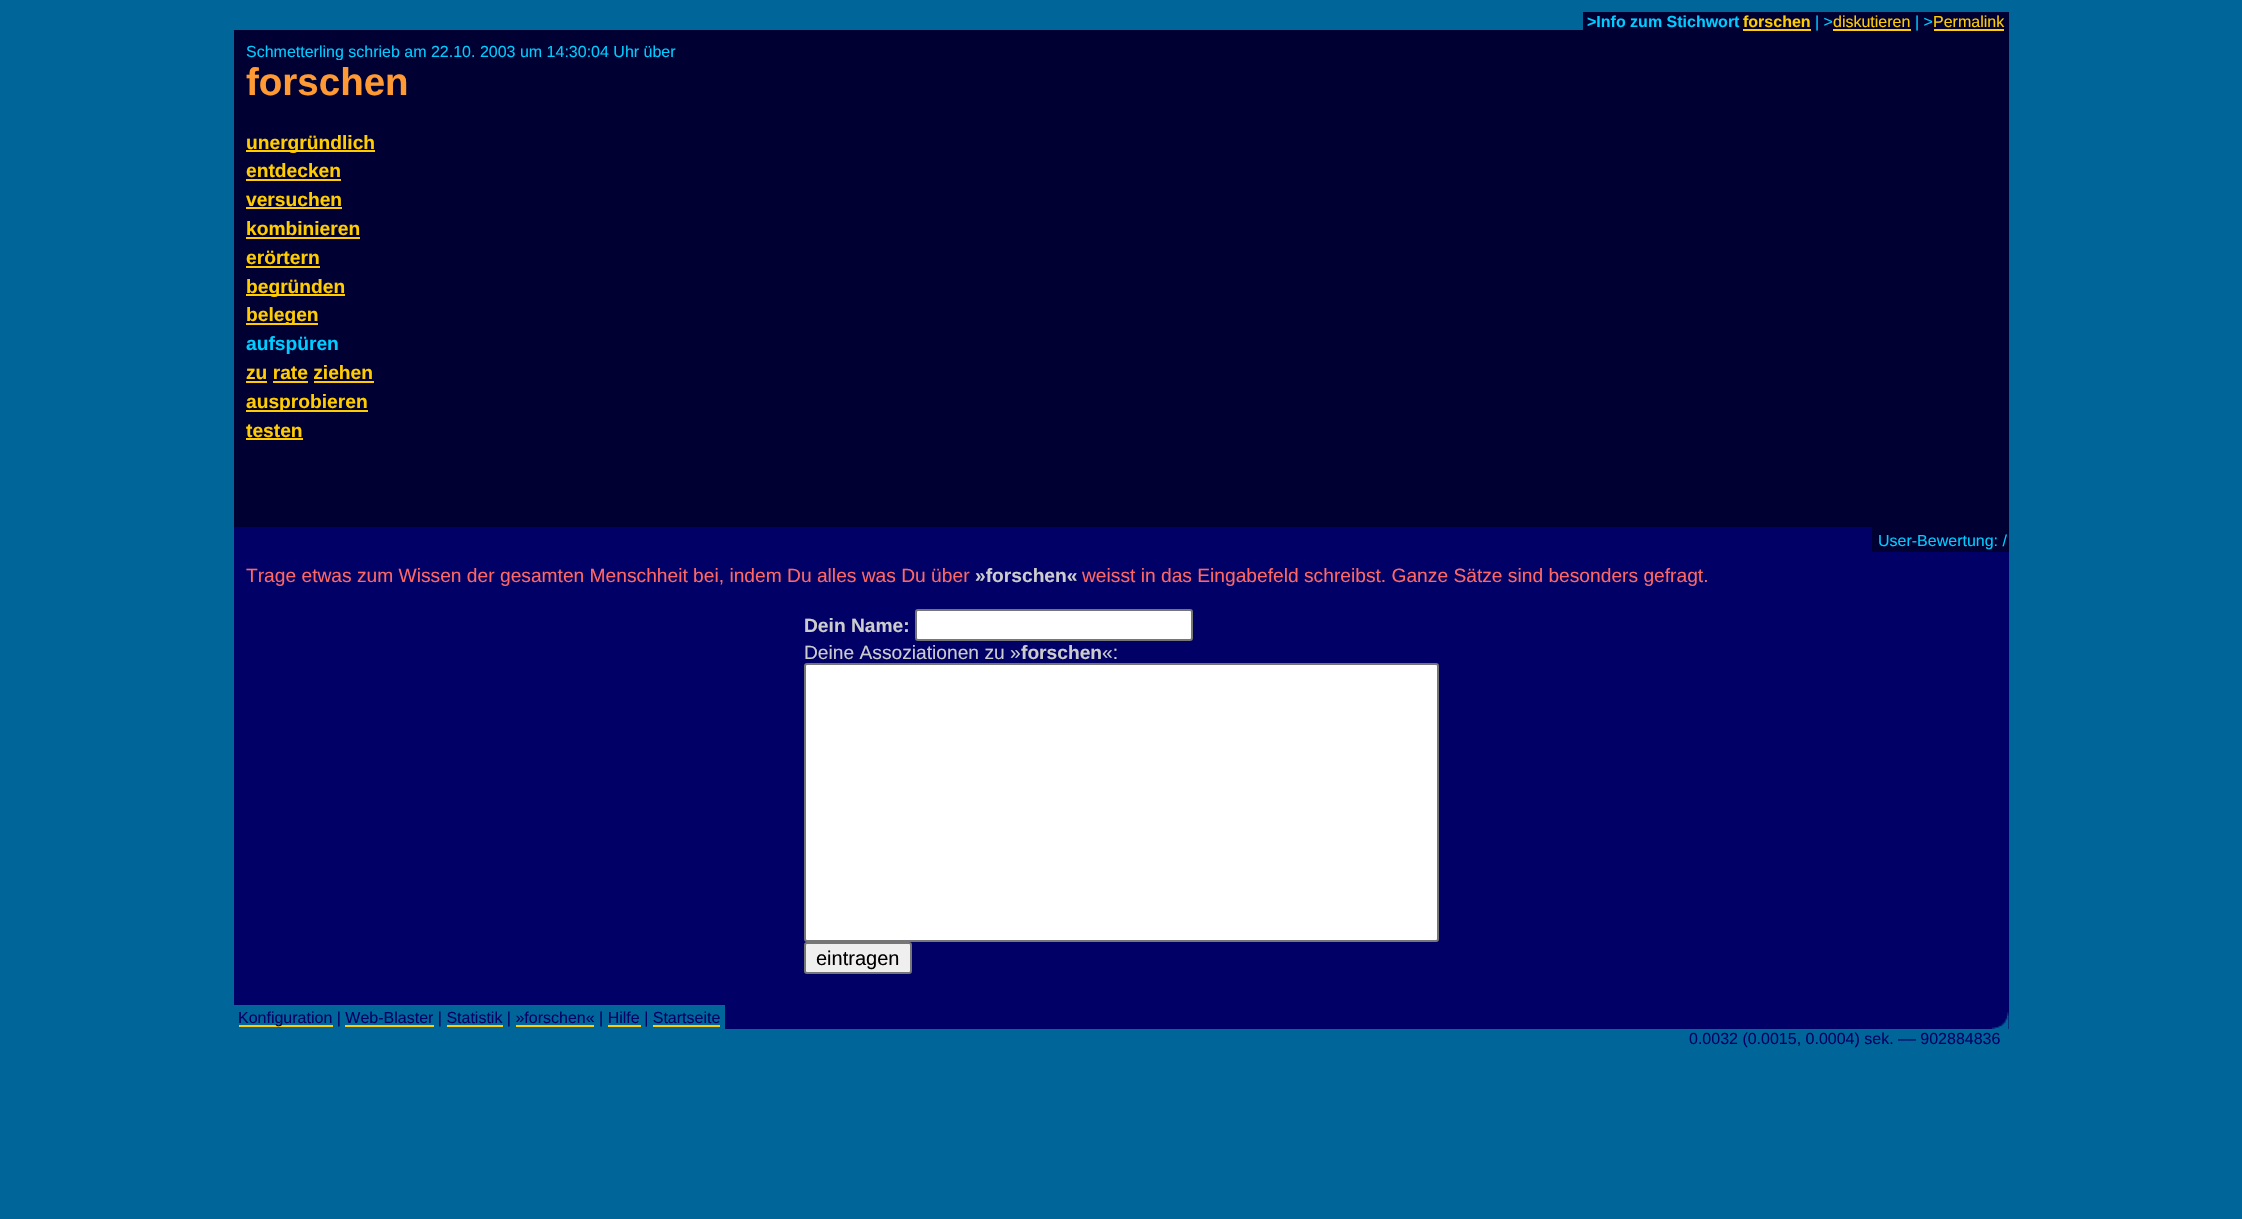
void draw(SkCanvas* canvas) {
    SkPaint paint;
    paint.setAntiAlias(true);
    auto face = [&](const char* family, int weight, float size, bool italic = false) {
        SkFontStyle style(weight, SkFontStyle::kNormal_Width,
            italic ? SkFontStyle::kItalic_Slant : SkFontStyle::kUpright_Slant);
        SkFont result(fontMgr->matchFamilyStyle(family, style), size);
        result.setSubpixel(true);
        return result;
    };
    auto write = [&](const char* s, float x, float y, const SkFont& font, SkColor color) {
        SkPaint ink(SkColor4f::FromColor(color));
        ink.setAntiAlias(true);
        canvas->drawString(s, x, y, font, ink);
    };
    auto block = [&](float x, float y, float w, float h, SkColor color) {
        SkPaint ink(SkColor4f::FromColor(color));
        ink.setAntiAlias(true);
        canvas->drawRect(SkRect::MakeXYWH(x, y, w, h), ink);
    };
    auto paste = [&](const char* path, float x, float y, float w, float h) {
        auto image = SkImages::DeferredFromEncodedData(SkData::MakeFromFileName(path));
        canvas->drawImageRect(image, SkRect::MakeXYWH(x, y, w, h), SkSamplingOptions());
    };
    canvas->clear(SkColorSetRGB(0, 102, 153));
    block(1583, 12, 426, 18, SkColorSetRGB(0, 0, 51));
    auto kFont1 = face("Liberation Sans", 700, 16);
    write(">Info zum Stichwort", 1587, 27, kFont1, SkColorSetRGB(0, 204, 255));
    write("forschen", 1743, 27, kFont1, SkColorSetRGB(255, 204, 0));
    block(234, 30, 1775, 497, SkColorSetRGB(0, 0, 51));
    block(1743, 29, 68, 2, SkColorSetRGB(255, 204, 0));
    auto kFont2 = face("Liberation Sans", 400, 16);
    write("| >", 1815, 27, kFont2, SkColorSetRGB(0, 204, 255));
    block(1833, 29, 78, 2, SkColorSetRGB(255, 204, 0));
    write("diskutieren", 1833, 27, kFont2, SkColorSetRGB(255, 204, 0));
    write("| >", 1915, 27, kFont2, SkColorSetRGB(0, 204, 255));
    block(1934, 29, 70, 2, SkColorSetRGB(255, 204, 0));
    write("Permalink", 1933, 27, kFont2, SkColorSetRGB(255, 204, 0));
    write("Schmetterling schrieb am 22.10. 2003 um 14:30:04 Uhr über", 246, 57, kFont2, SkColorSetRGB(0, 204, 255));
    auto kFont3 = face("Liberation Sans", 700, 38.5f);
    write("forschen", 246, 95, kFont3, SkColorSetRGB(255, 153, 51));
    block(337, 60, 4, 1, SkColorSetRGB(0, 0, 51));
    block(246, 150, 129, 2, SkColorSetRGB(255, 204, 0));
    auto kFont4 = face("Liberation Sans", 700, 19.2f);
    write("unergründlich", 246, 149, kFont4, SkColorSetRGB(255, 204, 0));
    write("entdecken", 246, 177, kFont4, SkColorSetRGB(255, 204, 0));
    block(246, 179, 95, 2, SkColorSetRGB(255, 204, 0));
    write("versuchen", 246, 206, kFont4, SkColorSetRGB(255, 204, 0));
    block(246, 207, 96, 2, SkColorSetRGB(255, 204, 0));
    write("kombinieren", 246, 235, kFont4, SkColorSetRGB(255, 204, 0));
    block(246, 237, 114, 2, SkColorSetRGB(255, 204, 0));
    write("erörtern", 246, 264, kFont4, SkColorSetRGB(255, 204, 0));
    block(246, 266, 74, 2, SkColorSetRGB(255, 204, 0));
    block(246, 294, 99, 2, SkColorSetRGB(255, 204, 0));
    write("begründen", 246, 293, kFont4, SkColorSetRGB(255, 204, 0));
    block(246, 323, 72, 2, SkColorSetRGB(255, 204, 0));
    write("belegen", 246, 321, kFont4, SkColorSetRGB(255, 204, 0));
    write("aufspüren", 246, 350, kFont4, SkColorSetRGB(0, 204, 255));
    write("zu rate ziehen", 246, 379, kFont4, SkColorSetRGB(255, 204, 0));
    block(246, 381, 21, 2, SkColorSetRGB(255, 204, 0));
    block(273, 381, 35, 2, SkColorSetRGB(255, 204, 0));
    block(314, 381, 60, 2, SkColorSetRGB(255, 204, 0));
    block(246, 410, 122, 2, SkColorSetRGB(255, 204, 0));
    write("ausprobieren", 246, 408, kFont4, SkColorSetRGB(255, 204, 0));
    write("testen", 246, 437, kFont4, SkColorSetRGB(255, 204, 0));
    block(246, 438, 57, 2, SkColorSetRGB(255, 204, 0));
    block(234, 527, 1638, 25, SkColorSetRGB(0, 0, 102));
    block(1872, 527, 137, 25, SkColorSetRGB(0, 0, 51));
    write("User-Bewertung: /", 1878, 546, kFont2, SkColorSetRGB(0, 204, 255));
    block(234, 552, 1775, 453, SkColorSetRGB(0, 0, 102));
    auto kFont5 = face("Liberation Sans", 400, 19.2f);
    write("Trage etwas zum Wissen der gesamten Menschheit bei, indem Du alles was Du über", 246, 582, kFont5, SkColorSetRGB(255, 102, 102));
    write("»forschen«", 975, 582, kFont4, SkColorSetRGB(204, 204, 204));
    write("weisst in das Eingabefeld schreibst. Ganze Sätze sind besonders gefragt.", 1082, 582, kFont5, SkColorSetRGB(255, 102, 102));
    write("Dein Name:", 804, 632, kFont4, SkColorSetRGB(204, 204, 204));
    paint.setColor(SK_ColorWHITE);
    canvas->drawRoundRect(SkRect::MakeXYWH(916, 610, 276, 30), 2, 2, paint);
    paint.setStyle(SkPaint::kStroke_Style);
    paint.setStrokeWidth(2);
    paint.setColor(SkColorSetRGB(118, 118, 118));
    canvas->drawRoundRect(SkRect::MakeXYWH(916, 610, 276, 30), 2, 2, paint);
    write("Deine Assoziationen zu »", 804, 659, kFont5, SkColorSetRGB(204, 204, 204));
    write("forschen", 1021, 659, kFont4, SkColorSetRGB(204, 204, 204));
    write("«:", 1102, 659, kFont5, SkColorSetRGB(204, 204, 204));
    paint.setStyle(SkPaint::kFill_Style);
    paint.setColor(SK_ColorWHITE);
    canvas->drawRoundRect(SkRect::MakeXYWH(805, 664, 633, 277), 2, 2, paint);
    paint.setStyle(SkPaint::kStroke_Style);
    paint.setColor(SkColorSetRGB(118, 118, 118));
    canvas->drawRoundRect(SkRect::MakeXYWH(805, 664, 633, 277), 2, 2, paint);
    paint.setStyle(SkPaint::kFill_Style);
    paint.setColor(SkColorSetRGB(239, 239, 239));
    canvas->drawRoundRect(SkRect::MakeXYWH(805, 943, 106, 30), 2, 2, paint);
    paint.setStyle(SkPaint::kStroke_Style);
    paint.setColor(SkColorSetRGB(118, 118, 118));
    canvas->drawRoundRect(SkRect::MakeXYWH(805, 943, 106, 30), 2, 2, paint);
    auto kFont6 = face("Liberation Sans", 400, 20);
    write("eintragen", 816, 965, kFont6, SK_ColorBLACK);
    block(239, 1025, 94, 2, SkColorSetRGB(255, 204, 0));
    write("Konfiguration | Web-Blaster | Statistik | »forschen« | Hilfe | Startseite", 238, 1023, kFont2, SkColorSetRGB(0, 0, 102));
    block(345, 1025, 89, 2, SkColorSetRGB(255, 204, 0));
    block(447, 1025, 56, 2, SkColorSetRGB(255, 204, 0));
    block(516, 1025, 78, 2, SkColorSetRGB(255, 204, 0));
    block(608, 1025, 33, 2, SkColorSetRGB(255, 204, 0));
    block(653, 1025, 67, 2, SkColorSetRGB(255, 204, 0));
    block(725, 1005, 1284, 24, SkColorSetRGB(0, 0, 102));
    paste("pic1.png", 1991, 1012, 18, 17);
    write("0.0032 (0.0015, 0.0004) sek. –– 902884836", 1689, 1044, kFont2, SkColorSetRGB(0, 0, 102));
}
